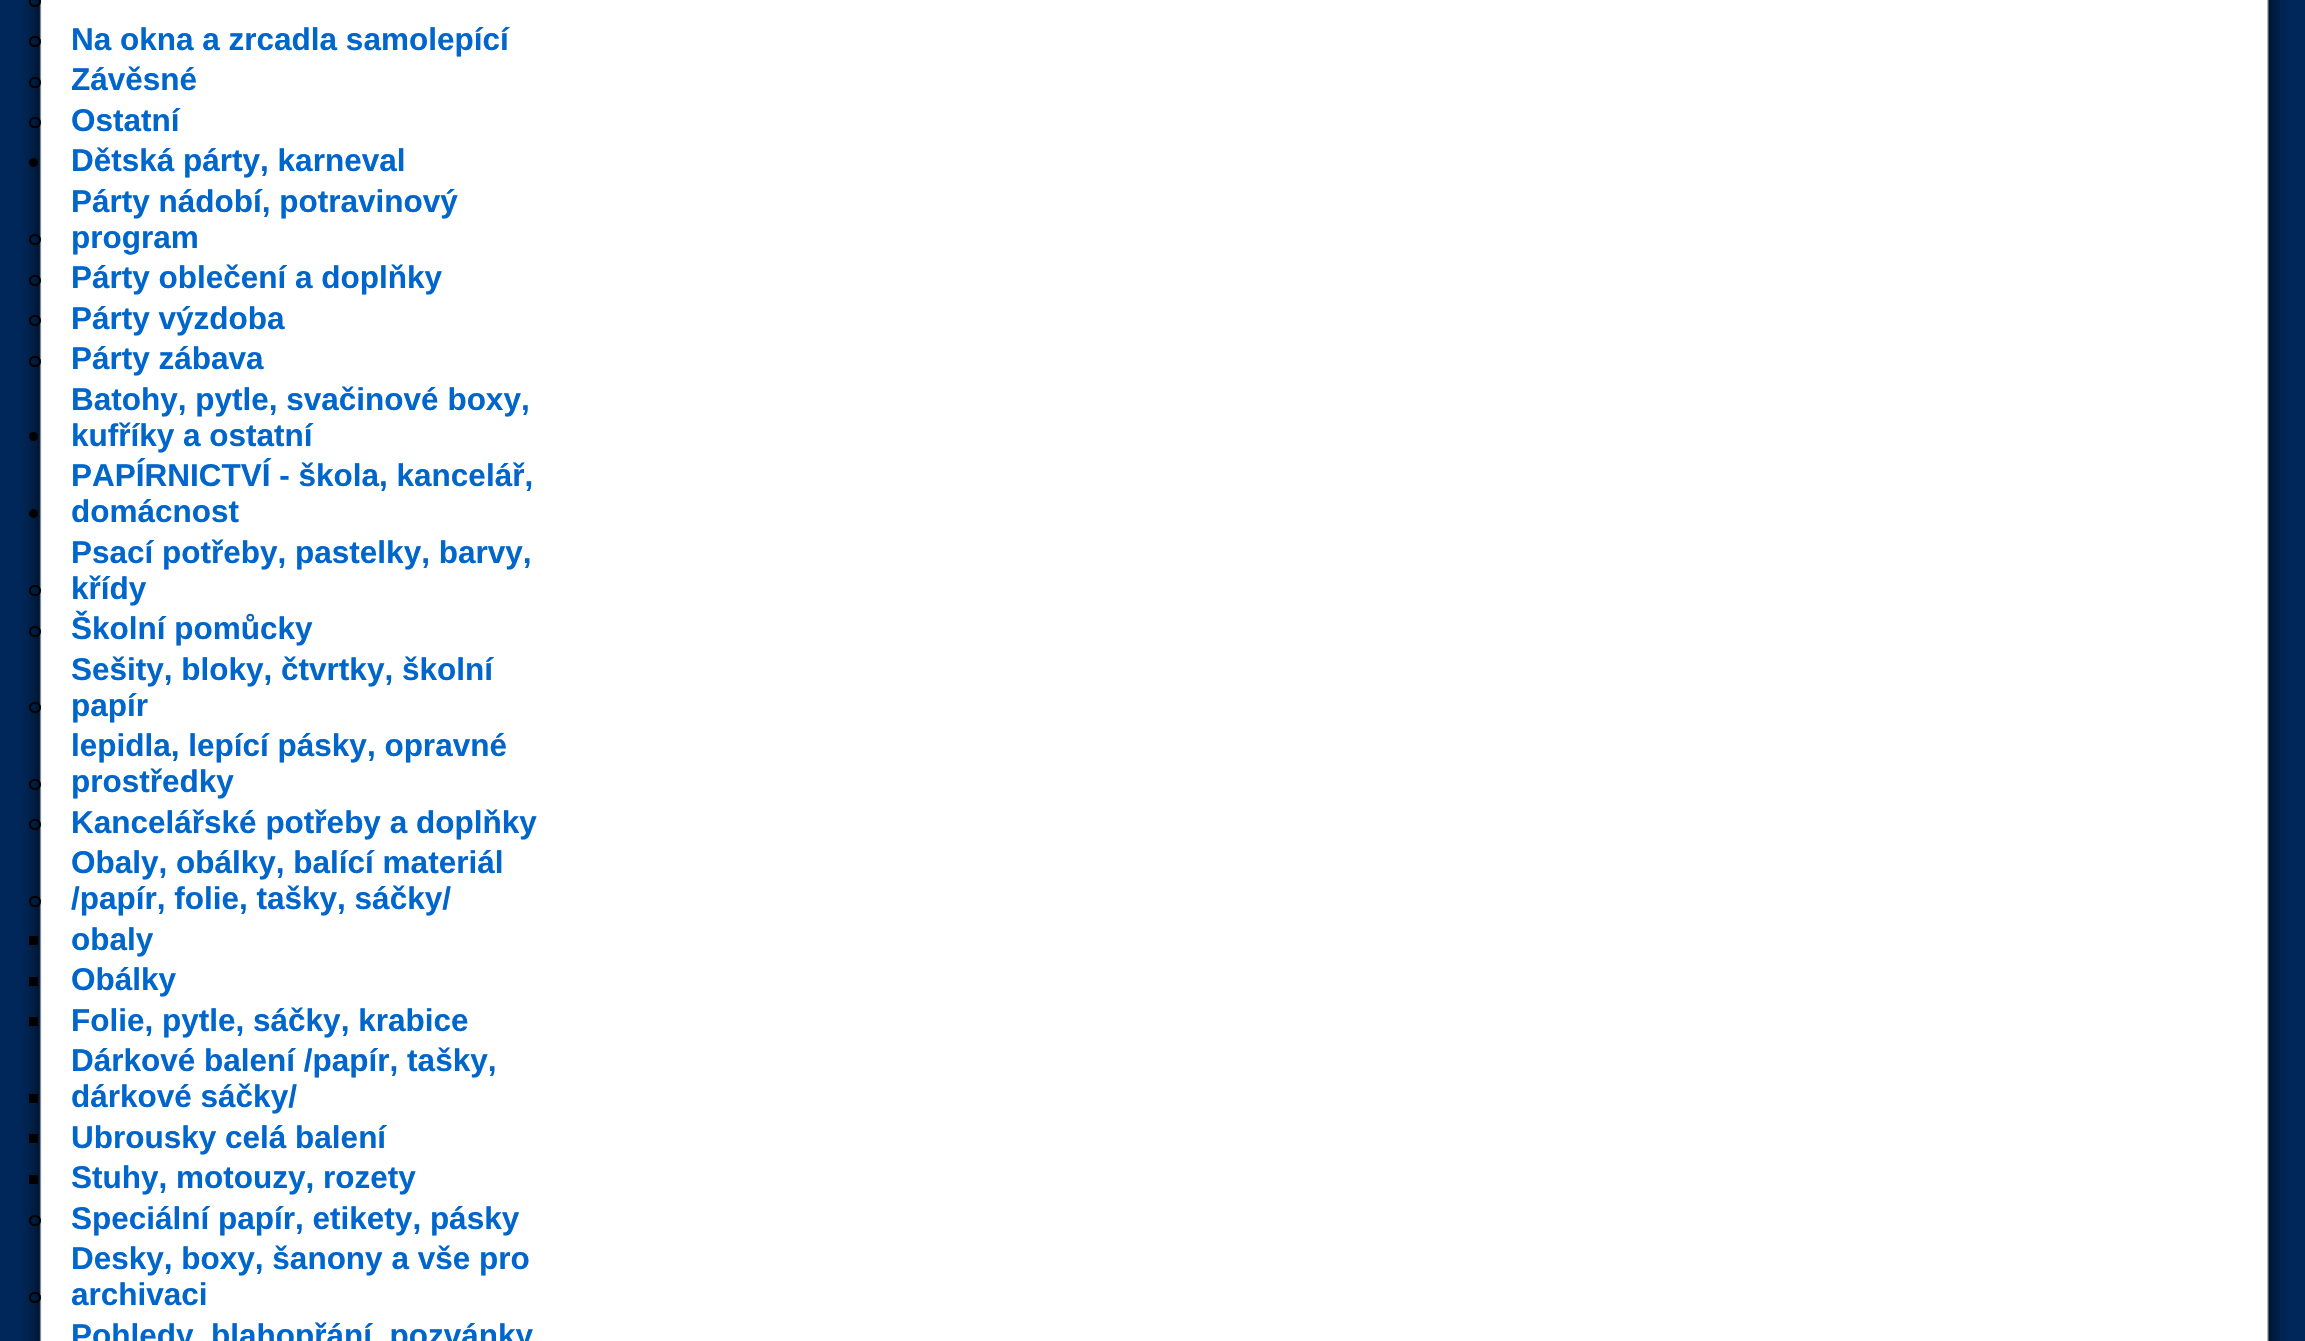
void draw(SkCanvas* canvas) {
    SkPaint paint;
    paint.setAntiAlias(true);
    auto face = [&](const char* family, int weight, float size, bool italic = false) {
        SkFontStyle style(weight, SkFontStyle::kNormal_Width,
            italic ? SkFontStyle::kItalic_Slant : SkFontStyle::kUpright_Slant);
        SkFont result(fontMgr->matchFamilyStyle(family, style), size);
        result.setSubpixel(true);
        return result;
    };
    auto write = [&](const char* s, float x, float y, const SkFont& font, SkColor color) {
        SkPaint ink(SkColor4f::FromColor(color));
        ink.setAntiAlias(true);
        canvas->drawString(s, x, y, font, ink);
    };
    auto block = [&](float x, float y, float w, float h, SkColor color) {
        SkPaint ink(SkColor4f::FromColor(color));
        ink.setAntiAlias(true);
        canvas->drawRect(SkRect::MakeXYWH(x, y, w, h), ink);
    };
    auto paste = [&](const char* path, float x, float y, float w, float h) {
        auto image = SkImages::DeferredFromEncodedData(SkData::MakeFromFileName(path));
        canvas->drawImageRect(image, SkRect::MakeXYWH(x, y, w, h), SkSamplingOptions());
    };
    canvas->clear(SkColorSetRGB(0, 39, 90));
    paste("pic1.png", 22, 0, 2265, 1341);
    paint.setStyle(SkPaint::kStroke_Style);
    paint.setStrokeWidth(2);
    paint.setColor(SK_ColorBLACK);
    canvas->drawRoundRect(SkRect::MakeXYWH(30, -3, 10, 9), 4.5f, 4.5f, paint);
    canvas->drawRoundRect(SkRect::MakeXYWH(30, 37, 10, 9), 4.5f, 4.5f, paint);
    auto kFont1 = face("Liberation Sans", 700, 31.5f);
    write("Na okna a zrcadla samolepící", 71, 50, kFont1, SkColorSetRGB(0, 102, 204));
    canvas->drawRoundRect(SkRect::MakeXYWH(30, 78, 10, 9), 4.5f, 4.5f, paint);
    write("Závěsné", 71, 90, kFont1, SkColorSetRGB(0, 102, 204));
    canvas->drawRoundRect(SkRect::MakeXYWH(30, 118, 10, 9), 4.5f, 4.5f, paint);
    write("Ostatní", 71, 131, kFont1, SkColorSetRGB(0, 102, 204));
    paint.setStyle(SkPaint::kFill_Style);
    canvas->drawCircle(33.5f, 162.5f, 4.5f, paint);
    write("Dětská párty, karneval", 71, 171, kFont1, SkColorSetRGB(0, 102, 204));
    paint.setStyle(SkPaint::kStroke_Style);
    canvas->drawRoundRect(SkRect::MakeXYWH(30, 235, 10, 9), 4.5f, 4.5f, paint);
    write("Párty nádobí, potravinový", 71, 212, kFont1, SkColorSetRGB(0, 102, 204));
    write("program", 71, 248, kFont1, SkColorSetRGB(0, 102, 204));
    canvas->drawRoundRect(SkRect::MakeXYWH(30, 276, 10, 9), 4.5f, 4.5f, paint);
    write("Párty oblečení a doplňky", 71, 288, kFont1, SkColorSetRGB(0, 102, 204));
    canvas->drawRoundRect(SkRect::MakeXYWH(30, 316, 10, 9), 4.5f, 4.5f, paint);
    write("Párty výzdoba", 71, 329, kFont1, SkColorSetRGB(0, 102, 204));
    canvas->drawRoundRect(SkRect::MakeXYWH(30, 357, 10, 9), 4.5f, 4.5f, paint);
    write("Párty zábava", 71, 369, kFont1, SkColorSetRGB(0, 102, 204));
    paint.setStyle(SkPaint::kFill_Style);
    canvas->drawCircle(33.5f, 436.5f, 4.5f, paint);
    write("Batohy, pytle, svačinové boxy,", 71, 410, kFont1, SkColorSetRGB(0, 102, 204));
    write("kufříky a ostatní", 71, 446, kFont1, SkColorSetRGB(0, 102, 204));
    canvas->drawCircle(33.5f, 513.5f, 4.5f, paint);
    write("PAPÍRNICTVÍ - škola, kancelář,", 71, 486, kFont1, SkColorSetRGB(0, 102, 204));
    write("domácnost", 71, 522, kFont1, SkColorSetRGB(0, 102, 204));
    paint.setStyle(SkPaint::kStroke_Style);
    canvas->drawRoundRect(SkRect::MakeXYWH(30, 586, 10, 9), 4.5f, 4.5f, paint);
    write("Psací potřeby, pastelky, barvy,", 71, 563, kFont1, SkColorSetRGB(0, 102, 204));
    write("křídy", 71, 599, kFont1, SkColorSetRGB(0, 102, 204));
    canvas->drawRoundRect(SkRect::MakeXYWH(30, 627, 10, 9), 4.5f, 4.5f, paint);
    write("Školní pomůcky", 71, 639, kFont1, SkColorSetRGB(0, 102, 204));
    canvas->drawRoundRect(SkRect::MakeXYWH(30, 703, 10, 9), 4.5f, 4.5f, paint);
    write("Sešity, bloky, čtvrtky, školní", 71, 680, kFont1, SkColorSetRGB(0, 102, 204));
    write("papír", 71, 716, kFont1, SkColorSetRGB(0, 102, 204));
    canvas->drawRoundRect(SkRect::MakeXYWH(30, 780, 10, 9), 4.5f, 4.5f, paint);
    write("lepidla, lepící pásky, opravné", 71, 756, kFont1, SkColorSetRGB(0, 102, 204));
    write("prostředky", 71, 792, kFont1, SkColorSetRGB(0, 102, 204));
    canvas->drawRoundRect(SkRect::MakeXYWH(30, 820, 10, 9), 4.5f, 4.5f, paint);
    write("Kancelářské potřeby a doplňky", 71, 833, kFont1, SkColorSetRGB(0, 102, 204));
    canvas->drawRoundRect(SkRect::MakeXYWH(30, 897, 10, 9), 4.5f, 4.5f, paint);
    write("Obaly, obálky, balící materiál", 71, 873, kFont1, SkColorSetRGB(0, 102, 204));
    write("/papír, folie, tašky, sáčky/", 71, 909, kFont1, SkColorSetRGB(0, 102, 204));
    block(29, 936, 9, 9, SK_ColorBLACK);
    write("obaly", 71, 950, kFont1, SkColorSetRGB(0, 102, 204));
    block(29, 977, 9, 9, SK_ColorBLACK);
    write("Obálky", 71, 990, kFont1, SkColorSetRGB(0, 102, 204));
    block(29, 1017, 9, 9, SK_ColorBLACK);
    write("Folie, pytle, sáčky, krabice", 71, 1031, kFont1, SkColorSetRGB(0, 102, 204));
    block(29, 1094, 9, 9, SK_ColorBLACK);
    write("Dárkové balení /papír, tašky,", 71, 1071, kFont1, SkColorSetRGB(0, 102, 204));
    write("dárkové sáčky/", 71, 1107, kFont1, SkColorSetRGB(0, 102, 204));
    block(29, 1134, 9, 9, SK_ColorBLACK);
    write("Ubrousky celá balení", 71, 1148, kFont1, SkColorSetRGB(0, 102, 204));
    block(29, 1175, 9, 9, SK_ColorBLACK);
    write("Stuhy, motouzy, rozety", 71, 1188, kFont1, SkColorSetRGB(0, 102, 204));
    canvas->drawRoundRect(SkRect::MakeXYWH(30, 1216, 10, 9), 4.5f, 4.5f, paint);
    write("Speciální papír, etikety, pásky", 71, 1229, kFont1, SkColorSetRGB(0, 102, 204));
    canvas->drawRoundRect(SkRect::MakeXYWH(30, 1293, 10, 9), 4.5f, 4.5f, paint);
    write("Desky, boxy, šanony a vše pro", 71, 1269, kFont1, SkColorSetRGB(0, 102, 204));
    write("archivaci", 71, 1305, kFont1, SkColorSetRGB(0, 102, 204));
    write("Pohledy, blahopřání, pozvánky", 71, 1346, kFont1, SkColorSetRGB(0, 102, 204));
}
